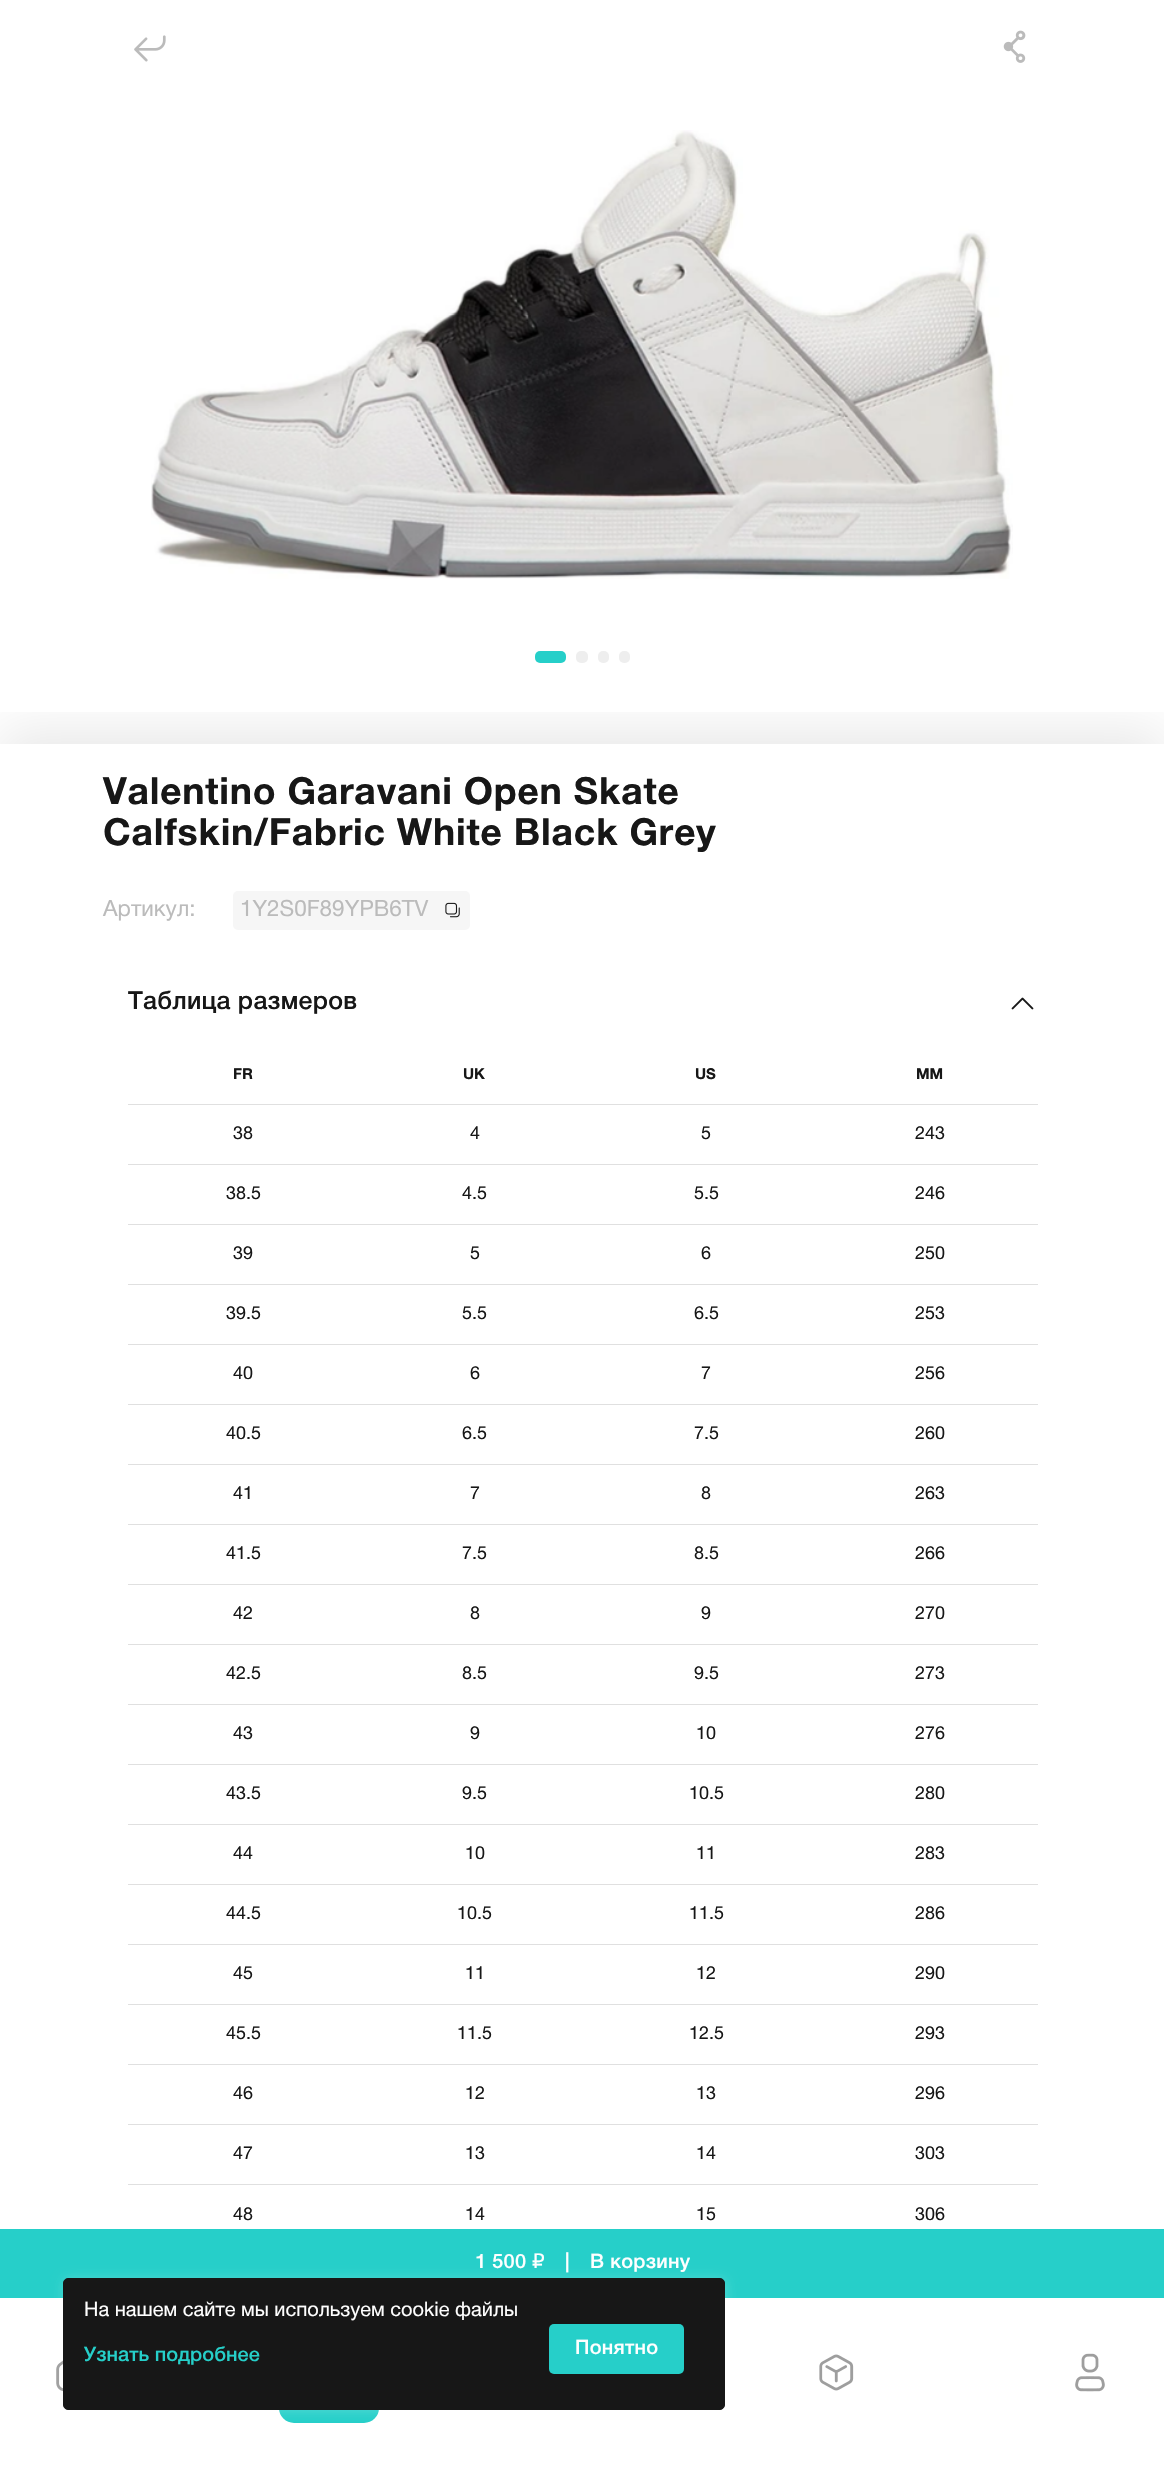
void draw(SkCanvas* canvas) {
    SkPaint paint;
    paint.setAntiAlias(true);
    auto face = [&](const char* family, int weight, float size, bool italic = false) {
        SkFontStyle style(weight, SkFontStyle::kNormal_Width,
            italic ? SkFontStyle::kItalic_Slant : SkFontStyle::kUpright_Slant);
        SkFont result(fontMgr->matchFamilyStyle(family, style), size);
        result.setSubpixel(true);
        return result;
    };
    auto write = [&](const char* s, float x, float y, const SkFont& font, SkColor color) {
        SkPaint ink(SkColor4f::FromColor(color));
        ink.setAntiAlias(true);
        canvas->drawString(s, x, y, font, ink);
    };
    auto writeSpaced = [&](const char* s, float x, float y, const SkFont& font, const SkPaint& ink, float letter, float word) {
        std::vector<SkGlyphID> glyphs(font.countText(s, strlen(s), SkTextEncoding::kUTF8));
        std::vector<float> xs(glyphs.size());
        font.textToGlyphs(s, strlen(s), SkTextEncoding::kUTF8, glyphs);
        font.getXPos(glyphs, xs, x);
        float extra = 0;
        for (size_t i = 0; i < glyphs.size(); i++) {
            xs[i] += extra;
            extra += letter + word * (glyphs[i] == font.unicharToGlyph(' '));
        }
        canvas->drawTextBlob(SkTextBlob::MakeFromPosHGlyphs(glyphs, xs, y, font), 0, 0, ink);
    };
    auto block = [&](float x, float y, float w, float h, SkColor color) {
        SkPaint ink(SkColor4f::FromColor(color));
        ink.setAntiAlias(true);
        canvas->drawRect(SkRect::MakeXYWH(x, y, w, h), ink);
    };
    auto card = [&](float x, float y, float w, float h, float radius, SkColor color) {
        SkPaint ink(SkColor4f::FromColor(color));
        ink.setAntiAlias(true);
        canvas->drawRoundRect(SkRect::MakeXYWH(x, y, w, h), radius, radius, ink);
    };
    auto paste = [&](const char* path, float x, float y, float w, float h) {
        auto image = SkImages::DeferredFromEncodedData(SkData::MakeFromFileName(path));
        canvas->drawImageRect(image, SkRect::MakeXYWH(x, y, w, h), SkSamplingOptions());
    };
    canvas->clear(SK_ColorWHITE);
    paste("pic1.png", 134, 35, 32, 27);
    paste("pic2.png", 1003, 30, 23, 33);
    paste("pic3.png", 151, 130, 862, 449);
    canvas->save();
    canvas->clipRect(SkRect::MakeXYWH(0, 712, 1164, 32));
    paint.setColor(SkColorSetARGB(23, 0, 0, 0));
    paint.setMaskFilter(SkMaskFilter::MakeBlur(kNormal_SkBlurStyle, 25));
    canvas->drawRect(SkRect::MakeXYWH(0, 731, 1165, 1642), paint);
    paint.setMaskFilter(nullptr);
    canvas->restore();
    card(535, 651, 31, 12, 5, SkColorSetRGB(38, 207, 201));
    card(576, 651, 12, 12, 5, SkColorSetRGB(238, 238, 238));
    card(598, 651, 11, 12, 5, SkColorSetRGB(238, 238, 238));
    card(619, 651, 11, 12, 5, SkColorSetRGB(238, 238, 238));
    auto kFont1 = face("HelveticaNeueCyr", 700, 37.5f);
    paint.setColor(SkColorSetRGB(23, 23, 23));
    writeSpaced("Valentino Garavani Open Skate", 103, 804, kFont1, paint, 0.75f, 0);
    writeSpaced("Calfskin/Fabric White Black Grey", 103, 845, kFont1, paint, 0.75f, 0);
    auto kFont2 = face("HelveticaNeueCyr", 400, 22.5f);
    write("Артикул:", 103, 916, kFont2, SkColorSetRGB(187, 187, 187));
    card(233, 891, 237, 39, 5, SkColorSetRGB(246, 246, 246));
    write("1Y2S0F89YPB6TV", 240, 916, kFont2, SkColorSetRGB(187, 187, 187));
    paste("pic4.png", 445, 902, 15, 16);
    auto kFont3 = face("HelveticaNeueCyr", 500, 25);
    writeSpaced("Таблица размеров", 128, 1009, kFont3, paint, 0.25f, 0);
    paste("pic5.png", 1011, 997, 23, 13);
    block(128, 1104, 910, 1, SkColorSetRGB(224, 224, 224));
    auto kFont4 = face("HelveticaNeueCyr", 700, 15);
    write("FR", 233, 1079, kFont4, SkColorSetRGB(23, 23, 23));
    write("UK", 463, 1079, kFont4, SkColorSetRGB(23, 23, 23));
    write("US", 695, 1079, kFont4, SkColorSetRGB(23, 23, 23));
    write("MM", 916, 1079, kFont4, SkColorSetRGB(23, 23, 23));
    block(128, 1164, 910, 1, SkColorSetRGB(224, 224, 224));
    auto kFont5 = face("HelveticaNeueCyr", 400, 18);
    write("38", 233, 1139, kFont5, SkColorSetRGB(23, 23, 23));
    write("4", 470, 1139, kFont5, SkColorSetRGB(23, 23, 23));
    write("5", 701, 1139, kFont5, SkColorSetRGB(23, 23, 23));
    write("243", 915, 1139, kFont5, SkColorSetRGB(23, 23, 23));
    block(128, 1224, 910, 1, SkColorSetRGB(224, 224, 224));
    write("38.5", 226, 1199, kFont5, SkColorSetRGB(23, 23, 23));
    write("4.5", 462, 1199, kFont5, SkColorSetRGB(23, 23, 23));
    write("5.5", 694, 1199, kFont5, SkColorSetRGB(23, 23, 23));
    write("246", 915, 1199, kFont5, SkColorSetRGB(23, 23, 23));
    block(128, 1284, 910, 1, SkColorSetRGB(224, 224, 224));
    write("39", 233, 1259, kFont5, SkColorSetRGB(23, 23, 23));
    write("5", 470, 1259, kFont5, SkColorSetRGB(23, 23, 23));
    write("6", 701, 1259, kFont5, SkColorSetRGB(23, 23, 23));
    write("250", 915, 1259, kFont5, SkColorSetRGB(23, 23, 23));
    block(128, 1344, 910, 1, SkColorSetRGB(224, 224, 224));
    write("39.5", 226, 1319, kFont5, SkColorSetRGB(23, 23, 23));
    write("5.5", 462, 1319, kFont5, SkColorSetRGB(23, 23, 23));
    write("6.5", 694, 1319, kFont5, SkColorSetRGB(23, 23, 23));
    write("253", 915, 1319, kFont5, SkColorSetRGB(23, 23, 23));
    block(128, 1404, 910, 1, SkColorSetRGB(224, 224, 224));
    write("40", 233, 1379, kFont5, SkColorSetRGB(23, 23, 23));
    write("6", 470, 1379, kFont5, SkColorSetRGB(23, 23, 23));
    write("7", 701, 1379, kFont5, SkColorSetRGB(23, 23, 23));
    write("256", 915, 1379, kFont5, SkColorSetRGB(23, 23, 23));
    block(128, 1464, 910, 1, SkColorSetRGB(224, 224, 224));
    write("40.5", 226, 1439, kFont5, SkColorSetRGB(23, 23, 23));
    write("6.5", 462, 1439, kFont5, SkColorSetRGB(23, 23, 23));
    write("7.5", 694, 1439, kFont5, SkColorSetRGB(23, 23, 23));
    write("260", 915, 1439, kFont5, SkColorSetRGB(23, 23, 23));
    block(128, 1524, 910, 1, SkColorSetRGB(224, 224, 224));
    write("41", 233, 1499, kFont5, SkColorSetRGB(23, 23, 23));
    write("7", 470, 1499, kFont5, SkColorSetRGB(23, 23, 23));
    write("8", 701, 1499, kFont5, SkColorSetRGB(23, 23, 23));
    write("263", 915, 1499, kFont5, SkColorSetRGB(23, 23, 23));
    block(128, 1584, 910, 1, SkColorSetRGB(224, 224, 224));
    write("41.5", 226, 1559, kFont5, SkColorSetRGB(23, 23, 23));
    write("7.5", 462, 1559, kFont5, SkColorSetRGB(23, 23, 23));
    write("8.5", 694, 1559, kFont5, SkColorSetRGB(23, 23, 23));
    write("266", 915, 1559, kFont5, SkColorSetRGB(23, 23, 23));
    block(128, 1644, 910, 1, SkColorSetRGB(224, 224, 224));
    write("42", 233, 1619, kFont5, SkColorSetRGB(23, 23, 23));
    write("8", 470, 1619, kFont5, SkColorSetRGB(23, 23, 23));
    write("9", 701, 1619, kFont5, SkColorSetRGB(23, 23, 23));
    write("270", 915, 1619, kFont5, SkColorSetRGB(23, 23, 23));
    block(128, 1704, 910, 1, SkColorSetRGB(224, 224, 224));
    write("42.5", 226, 1679, kFont5, SkColorSetRGB(23, 23, 23));
    write("8.5", 462, 1679, kFont5, SkColorSetRGB(23, 23, 23));
    write("9.5", 694, 1679, kFont5, SkColorSetRGB(23, 23, 23));
    write("273", 915, 1679, kFont5, SkColorSetRGB(23, 23, 23));
    block(128, 1764, 910, 1, SkColorSetRGB(224, 224, 224));
    write("43", 233, 1739, kFont5, SkColorSetRGB(23, 23, 23));
    write("9", 470, 1739, kFont5, SkColorSetRGB(23, 23, 23));
    write("10", 696, 1739, kFont5, SkColorSetRGB(23, 23, 23));
    write("276", 915, 1739, kFont5, SkColorSetRGB(23, 23, 23));
    block(128, 1824, 910, 1, SkColorSetRGB(224, 224, 224));
    write("43.5", 226, 1799, kFont5, SkColorSetRGB(23, 23, 23));
    write("9.5", 462, 1799, kFont5, SkColorSetRGB(23, 23, 23));
    write("10.5", 689, 1799, kFont5, SkColorSetRGB(23, 23, 23));
    write("280", 915, 1799, kFont5, SkColorSetRGB(23, 23, 23));
    block(128, 1884, 910, 1, SkColorSetRGB(224, 224, 224));
    write("44", 233, 1859, kFont5, SkColorSetRGB(23, 23, 23));
    write("10", 465, 1859, kFont5, SkColorSetRGB(23, 23, 23));
    write("11", 696, 1859, kFont5, SkColorSetRGB(23, 23, 23));
    write("283", 915, 1859, kFont5, SkColorSetRGB(23, 23, 23));
    block(128, 1944, 910, 1, SkColorSetRGB(224, 224, 224));
    write("44.5", 226, 1919, kFont5, SkColorSetRGB(23, 23, 23));
    write("10.5", 457, 1919, kFont5, SkColorSetRGB(23, 23, 23));
    write("11.5", 689, 1919, kFont5, SkColorSetRGB(23, 23, 23));
    write("286", 915, 1919, kFont5, SkColorSetRGB(23, 23, 23));
    block(128, 2004, 910, 1, SkColorSetRGB(224, 224, 224));
    write("45", 233, 1979, kFont5, SkColorSetRGB(23, 23, 23));
    write("11", 465, 1979, kFont5, SkColorSetRGB(23, 23, 23));
    write("12", 696, 1979, kFont5, SkColorSetRGB(23, 23, 23));
    write("290", 915, 1979, kFont5, SkColorSetRGB(23, 23, 23));
    block(128, 2064, 910, 1, SkColorSetRGB(224, 224, 224));
    write("45.5", 226, 2039, kFont5, SkColorSetRGB(23, 23, 23));
    write("11.5", 457, 2039, kFont5, SkColorSetRGB(23, 23, 23));
    write("12.5", 689, 2039, kFont5, SkColorSetRGB(23, 23, 23));
    write("293", 915, 2039, kFont5, SkColorSetRGB(23, 23, 23));
    block(128, 2124, 910, 1, SkColorSetRGB(224, 224, 224));
    write("46", 233, 2099, kFont5, SkColorSetRGB(23, 23, 23));
    write("12", 465, 2099, kFont5, SkColorSetRGB(23, 23, 23));
    write("13", 696, 2099, kFont5, SkColorSetRGB(23, 23, 23));
    write("296", 915, 2099, kFont5, SkColorSetRGB(23, 23, 23));
    block(128, 2184, 910, 1, SkColorSetRGB(224, 224, 224));
    write("47", 233, 2159, kFont5, SkColorSetRGB(23, 23, 23));
    write("13", 465, 2159, kFont5, SkColorSetRGB(23, 23, 23));
    write("14", 696, 2159, kFont5, SkColorSetRGB(23, 23, 23));
    write("303", 915, 2159, kFont5, SkColorSetRGB(23, 23, 23));
    write("48", 233, 2220, kFont5, SkColorSetRGB(23, 23, 23));
    write("14", 465, 2220, kFont5, SkColorSetRGB(23, 23, 23));
    write("15", 696, 2220, kFont5, SkColorSetRGB(23, 23, 23));
    write("306", 915, 2220, kFont5, SkColorSetRGB(23, 23, 23));
    block(0, 2229, 1164, 69, SkColorSetRGB(38, 207, 201));
    auto kFont6 = face("HelveticaNeueCyr", 500, 20);
    paint.setColor(SK_ColorWHITE);
    writeSpaced("1 500", 475, 2268, kFont6, paint, 0.25f, 0);
    auto kFont7 = face("DejaVu Sans", 400, 20);
    writeSpaced("₽", 532, 2268, kFont7, paint, 0.25f, 0);
    writeSpaced("|", 565, 2268, kFont6, paint, 0.25f, 0);
    writeSpaced("В корзину", 590, 2268, kFont6, paint, 0.25f, 0);
    block(0, 2385, 1164, 18, SK_ColorWHITE);
    paste("pic6.png", 56, 2360, 7, 32);
    card(279, 2323, 100, 100, 15, SkColorSetRGB(38, 207, 201));
    paint.setColor(SkColorSetARGB(51, 255, 255, 255));
    paint.setMaskFilter(SkMaskFilter::MakeBlur(kNormal_SkBlurStyle, 6));
    canvas->drawRoundRect(SkRect::MakeXYWH(64, 2279, 662, 132), 5, 5, paint);
    paint.setMaskFilter(nullptr);
    paint.setColor(SkColorSetRGB(23, 23, 23));
    canvas->drawRoundRect(SkRect::MakeXYWH(63.5f, 2278.5f, 661, 131), 4.5f, 4.5f, paint);
    paint.setStyle(SkPaint::kStroke_Style);
    paint.setStrokeWidth(1);
    canvas->drawRoundRect(SkRect::MakeXYWH(63.5f, 2278.5f, 661, 131), 4.5f, 4.5f, paint);
    auto kFont8 = face("HelveticaNeueCyr", 400, 20);
    write("На нашем сайте мы используем cookie файлы", 84, 2316, kFont8, SK_ColorWHITE);
    write("Узнать подробнее", 84, 2361, kFont6, SkColorSetRGB(38, 207, 201));
    card(549, 2324, 135, 50, 5, SkColorSetRGB(38, 207, 201));
    paint.setStyle(SkPaint::kFill_Style);
    paint.setColor(SK_ColorWHITE);
    writeSpaced("Понятно", 575, 2354, kFont6, paint, 0.25f, 0);
    paste("pic7.png", 819, 2354, 35, 37);
    paste("pic8.png", 1075, 2353, 30, 39);
}
